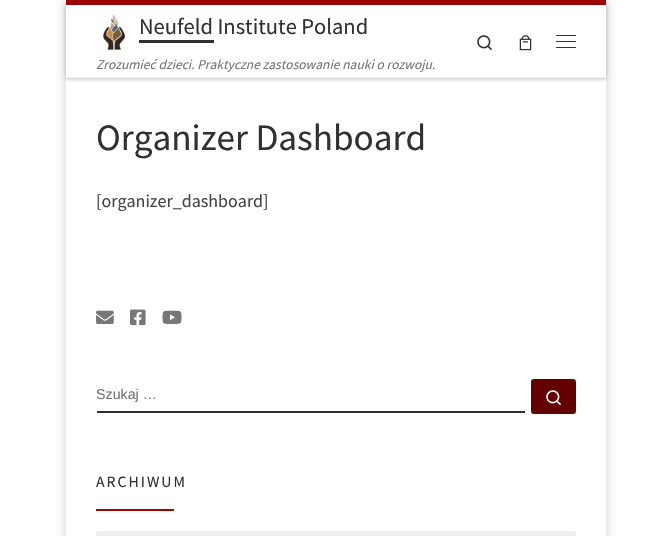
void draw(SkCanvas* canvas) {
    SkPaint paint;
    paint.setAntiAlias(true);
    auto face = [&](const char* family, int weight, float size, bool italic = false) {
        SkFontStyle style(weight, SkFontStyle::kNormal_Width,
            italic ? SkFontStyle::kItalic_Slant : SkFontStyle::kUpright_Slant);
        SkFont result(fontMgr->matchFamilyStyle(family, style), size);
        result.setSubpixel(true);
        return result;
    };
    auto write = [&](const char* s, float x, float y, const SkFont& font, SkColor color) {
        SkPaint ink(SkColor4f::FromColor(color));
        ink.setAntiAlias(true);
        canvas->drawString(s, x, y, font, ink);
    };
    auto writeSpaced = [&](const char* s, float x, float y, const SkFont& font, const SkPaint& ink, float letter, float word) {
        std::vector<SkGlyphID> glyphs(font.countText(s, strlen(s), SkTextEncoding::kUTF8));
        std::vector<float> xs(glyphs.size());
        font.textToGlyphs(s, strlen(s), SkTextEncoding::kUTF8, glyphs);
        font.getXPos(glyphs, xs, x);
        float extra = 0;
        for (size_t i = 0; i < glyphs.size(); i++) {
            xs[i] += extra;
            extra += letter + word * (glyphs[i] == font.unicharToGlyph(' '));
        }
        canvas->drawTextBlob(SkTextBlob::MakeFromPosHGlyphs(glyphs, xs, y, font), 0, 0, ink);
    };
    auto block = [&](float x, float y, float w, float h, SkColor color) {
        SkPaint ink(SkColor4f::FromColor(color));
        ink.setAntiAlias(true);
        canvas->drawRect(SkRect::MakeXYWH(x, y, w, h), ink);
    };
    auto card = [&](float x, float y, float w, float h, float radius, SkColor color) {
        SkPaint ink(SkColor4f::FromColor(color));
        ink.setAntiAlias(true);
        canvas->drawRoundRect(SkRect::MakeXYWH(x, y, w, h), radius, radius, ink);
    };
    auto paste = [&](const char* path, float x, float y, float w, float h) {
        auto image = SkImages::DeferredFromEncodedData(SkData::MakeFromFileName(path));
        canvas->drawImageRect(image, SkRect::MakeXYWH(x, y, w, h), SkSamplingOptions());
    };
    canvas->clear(SK_ColorWHITE);
    canvas->save();
    canvas->clipPath(SkPathBuilder(SkPathFillType::kEvenOdd).moveTo(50, 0).lineTo(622, 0).lineTo(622, 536).lineTo(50, 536).close().moveTo(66, 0).lineTo(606, 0).lineTo(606, 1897).lineTo(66, 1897).close().detach(), true);
    paint.setColor(SkColorSetARGB(51, 0, 0, 0));
    paint.setMaskFilter(SkMaskFilter::MakeBlur(kNormal_SkBlurStyle, 5));
    canvas->drawRect(SkRect::MakeXYWH(66, 0, 540, 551), paint);
    paint.setMaskFilter(nullptr);
    canvas->restore();
    canvas->save();
    canvas->clipPath(SkPathBuilder(SkPathFillType::kEvenOdd).moveTo(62, 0).lineTo(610, 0).lineTo(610, 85).lineTo(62, 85).close().moveTo(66, 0).lineTo(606, 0).lineTo(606, 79).lineTo(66, 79).close().detach(), true);
    paint.setColor(SkColorSetARGB(20, 102, 102, 102));
    paint.setMaskFilter(SkMaskFilter::MakeBlur(kNormal_SkBlurStyle, 1));
    canvas->drawRect(SkRect::MakeXYWH(66, 2, 540, 79), paint);
    paint.setMaskFilter(nullptr);
    canvas->restore();
    block(66, 0, 540, 5, SkColorSetRGB(160, 1, 1));
    block(66, 78, 540, 1, SkColorSetRGB(239, 239, 239));
    canvas->save();
    canvas->clipPath(SkPathBuilder(SkPathFillType::kEvenOdd).moveTo(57, 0).lineTo(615, 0).lineTo(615, 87).lineTo(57, 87).close().moveTo(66, 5).lineTo(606, 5).lineTo(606, 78).lineTo(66, 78).close().detach(), true);
    paint.setColor(SkColorSetARGB(51, 0, 0, 0));
    paint.setMaskFilter(SkMaskFilter::MakeBlur(kNormal_SkBlurStyle, 2.5f));
    canvas->drawRect(SkRect::MakeXYWH(66, 5, 540, 73), paint);
    paint.setMaskFilter(nullptr);
    canvas->restore();
    paste("pic1.png", 103, 14, 22, 36);
    auto kFont1 = face("Source Sans Pro", 400, 22.5f);
    write("Neufeld Institute Poland", 139, 34, kFont1, SkColorSetRGB(48, 49, 51));
    block(139, 40, 75, 3, SkColorSetRGB(49, 49, 49));
    auto kFont2 = face("Source Sans Pro", 400, 13.5f, true);
    write("Zrozumieć dzieci. Praktyczne zastosowanie nauki o rozwoju.", 96, 69, kFont2, SkColorSetRGB(117, 117, 117));
    paste("pic2.png", 477, 35, 15, 16);
    paste("pic3.png", 519, 35, 13, 16);
    card(556, 35, 20, 1, 0.5f, SkColorSetRGB(49, 49, 49));
    card(556, 41, 20, 1, 0.5f, SkColorSetRGB(49, 49, 49));
    card(556, 47, 20, 1, 0.5f, SkColorSetRGB(49, 49, 49));
    block(66, 77, 540, 1, SkColorSetRGB(240, 240, 240));
    auto kFont3 = face("Source Sans Pro", 400, 37.25f);
    write("Organizer Dashboard", 96, 150, kFont3, SkColorSetRGB(48, 49, 51));
    auto kFont4 = face("Source Sans Pro", 400, 18);
    write("[organizer_dashboard]", 96, 207, kFont4, SkColorSetRGB(68, 68, 68));
    paste("pic4.png", 96, 310, 18, 14);
    paste("pic5.png", 130, 309, 16, 17);
    paste("pic6.png", 162, 310, 20, 14);
    block(97, 411, 428, 2, SkColorSetRGB(49, 49, 49));
    auto kFont5 = face("Liberation Sans", 400, 14.25f);
    write("Szukaj …", 96, 399, kFont5, SkColorSetRGB(117, 117, 117));
    paint.setColor(SkColorSetRGB(99, 1, 1));
    canvas->drawRoundRect(SkRect::MakeXYWH(532, 380, 43, 33), 2, 2, paint);
    paint.setStyle(SkPaint::kStroke_Style);
    paint.setStrokeWidth(2);
    canvas->drawRoundRect(SkRect::MakeXYWH(532, 380, 43, 33), 2, 2, paint);
    paste("pic7.png", 546, 390, 15, 16);
    auto kFont6 = face("Source Sans Pro", 400, 15.75f);
    paint.setStyle(SkPaint::kFill_Style);
    paint.setColor(SkColorSetRGB(48, 49, 51));
    writeSpaced("ARCHIWUM", 96, 487, kFont6, paint, 2, 0);
    block(96, 509, 78, 2, SkColorSetRGB(160, 1, 1));
    paint.setColor(SkColorSetRGB(239, 239, 239));
    canvas->drawRoundRect(SkRect::MakeXYWH(96.5f, 531.5f, 479, 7), 1.5f, 1.5f, paint);
    paint.setStyle(SkPaint::kStroke_Style);
    paint.setStrokeWidth(1);
    paint.setColor(SkColorSetRGB(236, 238, 239));
    canvas->drawRoundRect(SkRect::MakeXYWH(96.5f, 531.5f, 479, 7), 1.5f, 1.5f, paint);
}
